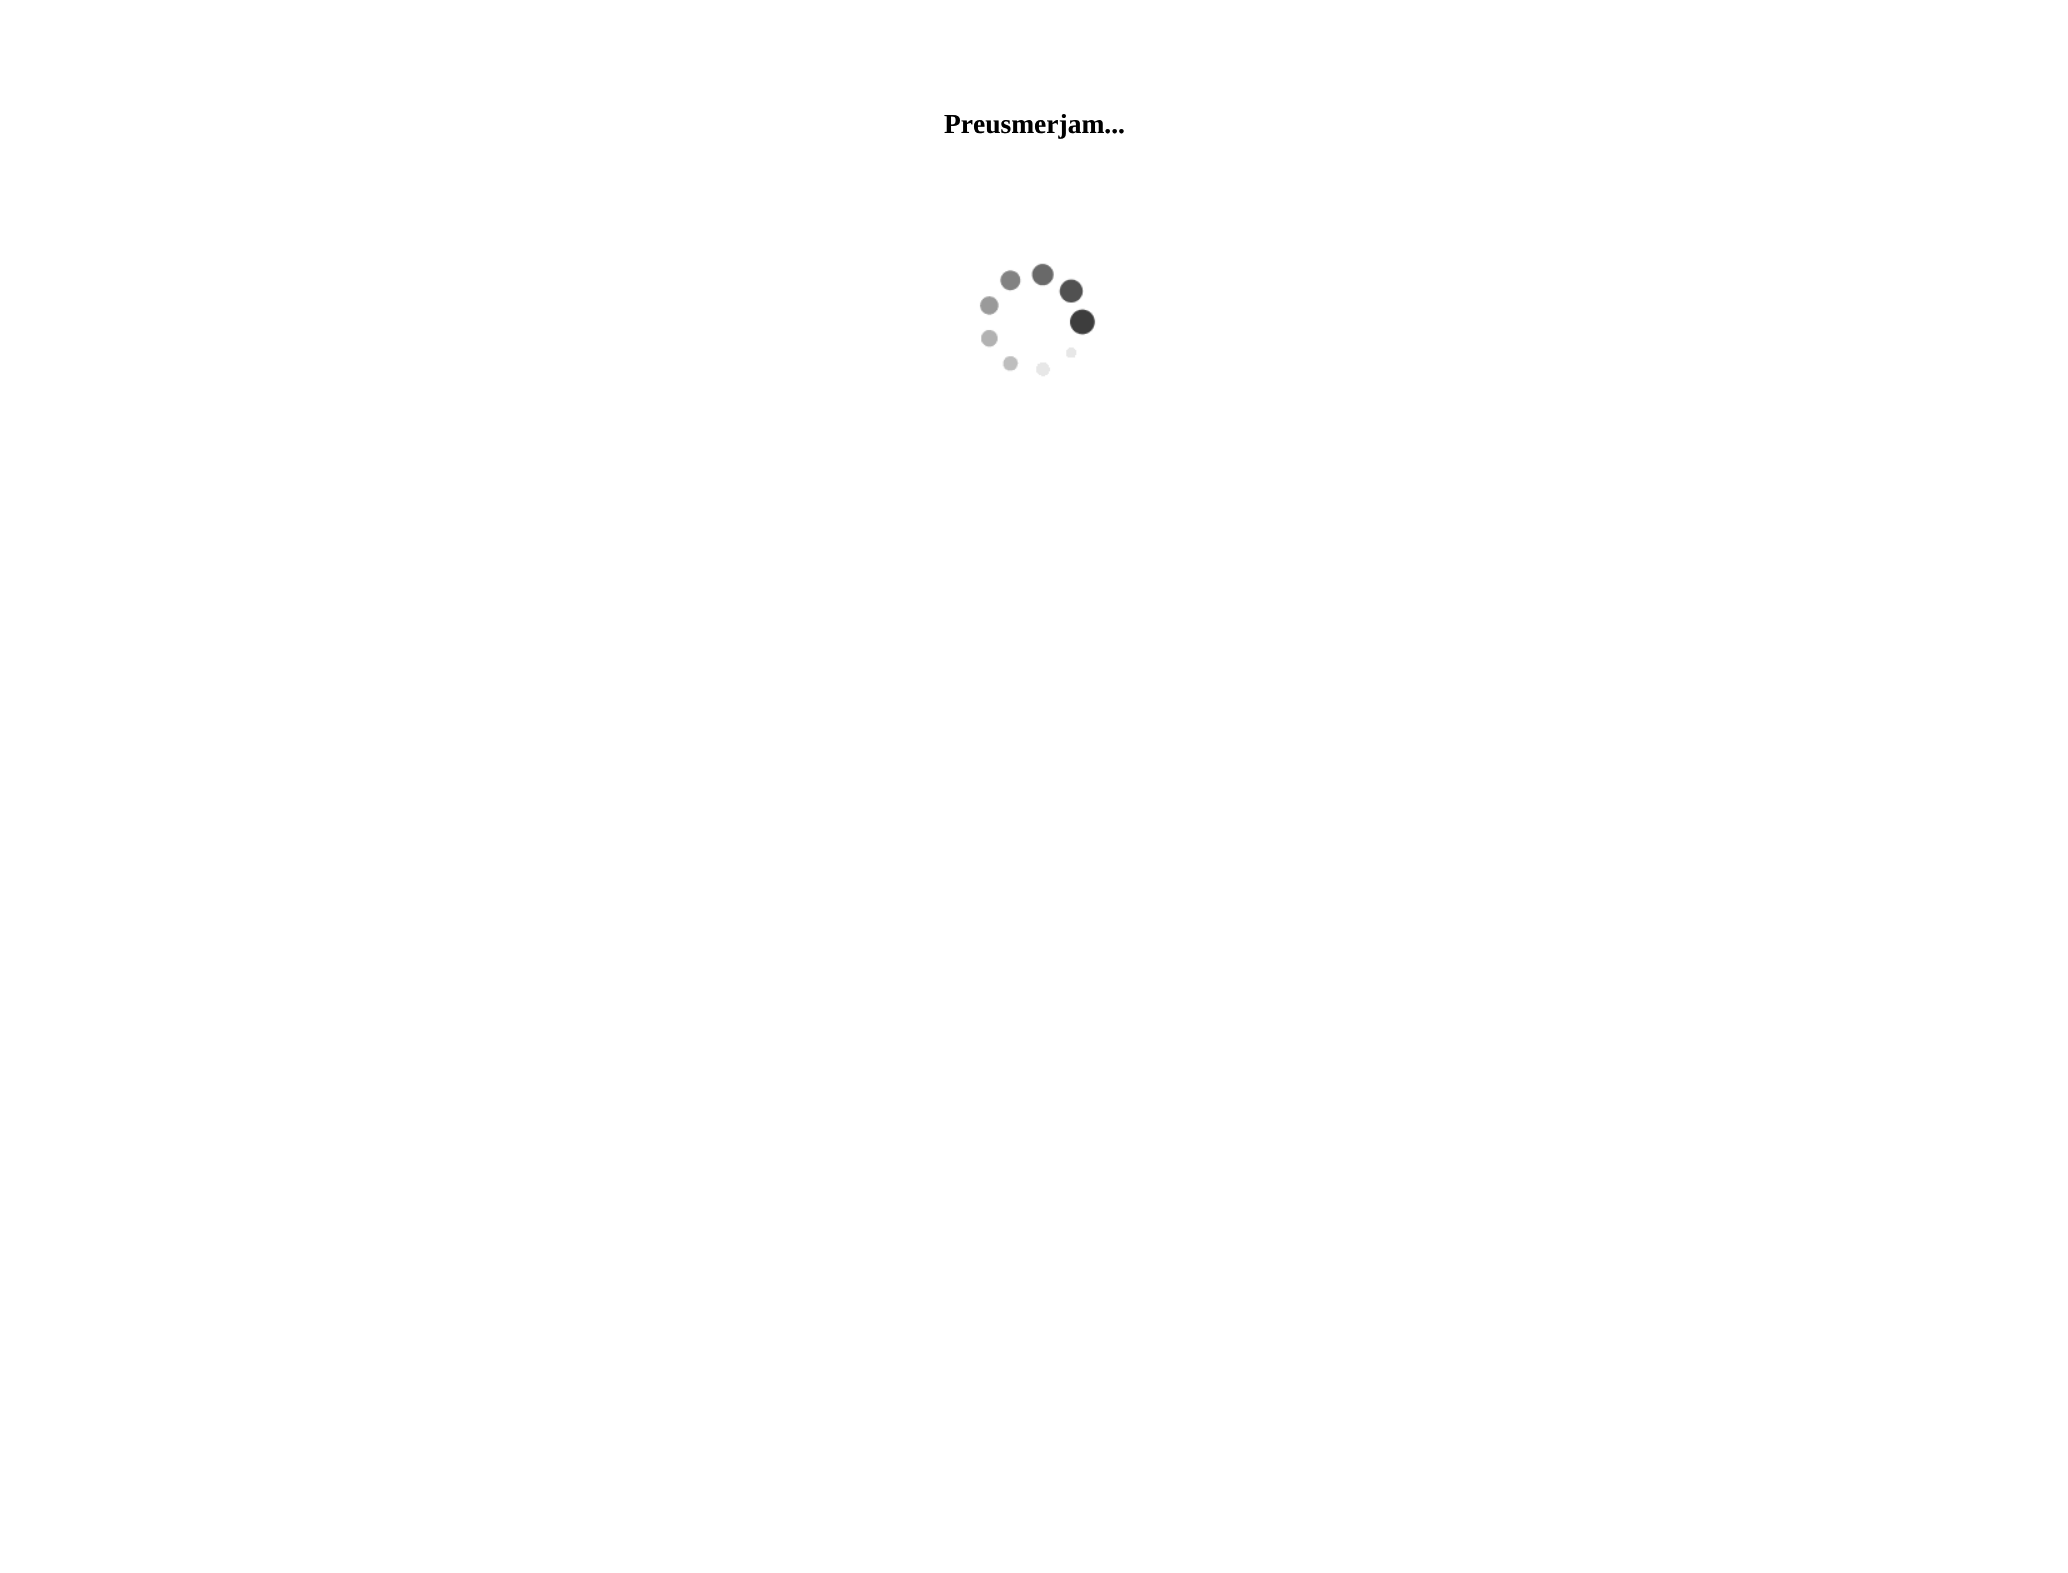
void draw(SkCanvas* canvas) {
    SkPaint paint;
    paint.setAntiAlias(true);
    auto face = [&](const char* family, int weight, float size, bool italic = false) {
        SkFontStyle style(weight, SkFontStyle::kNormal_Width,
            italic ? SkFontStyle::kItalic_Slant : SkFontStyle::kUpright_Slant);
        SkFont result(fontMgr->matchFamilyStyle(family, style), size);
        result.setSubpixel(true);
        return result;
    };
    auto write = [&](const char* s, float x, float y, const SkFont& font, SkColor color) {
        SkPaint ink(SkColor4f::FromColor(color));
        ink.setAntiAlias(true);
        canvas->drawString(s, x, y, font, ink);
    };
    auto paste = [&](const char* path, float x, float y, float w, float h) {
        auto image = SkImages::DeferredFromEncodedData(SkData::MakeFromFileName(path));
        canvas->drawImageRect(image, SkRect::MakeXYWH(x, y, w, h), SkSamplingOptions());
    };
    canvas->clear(SK_ColorWHITE);
    auto kFont1 = face("Liberation Serif", 700, 27.5f);
    write("Preusmerjam...", 944, 133, kFont1, SK_ColorBLACK);
    paste("pic1.png", 979, 263, 117, 114);
}
